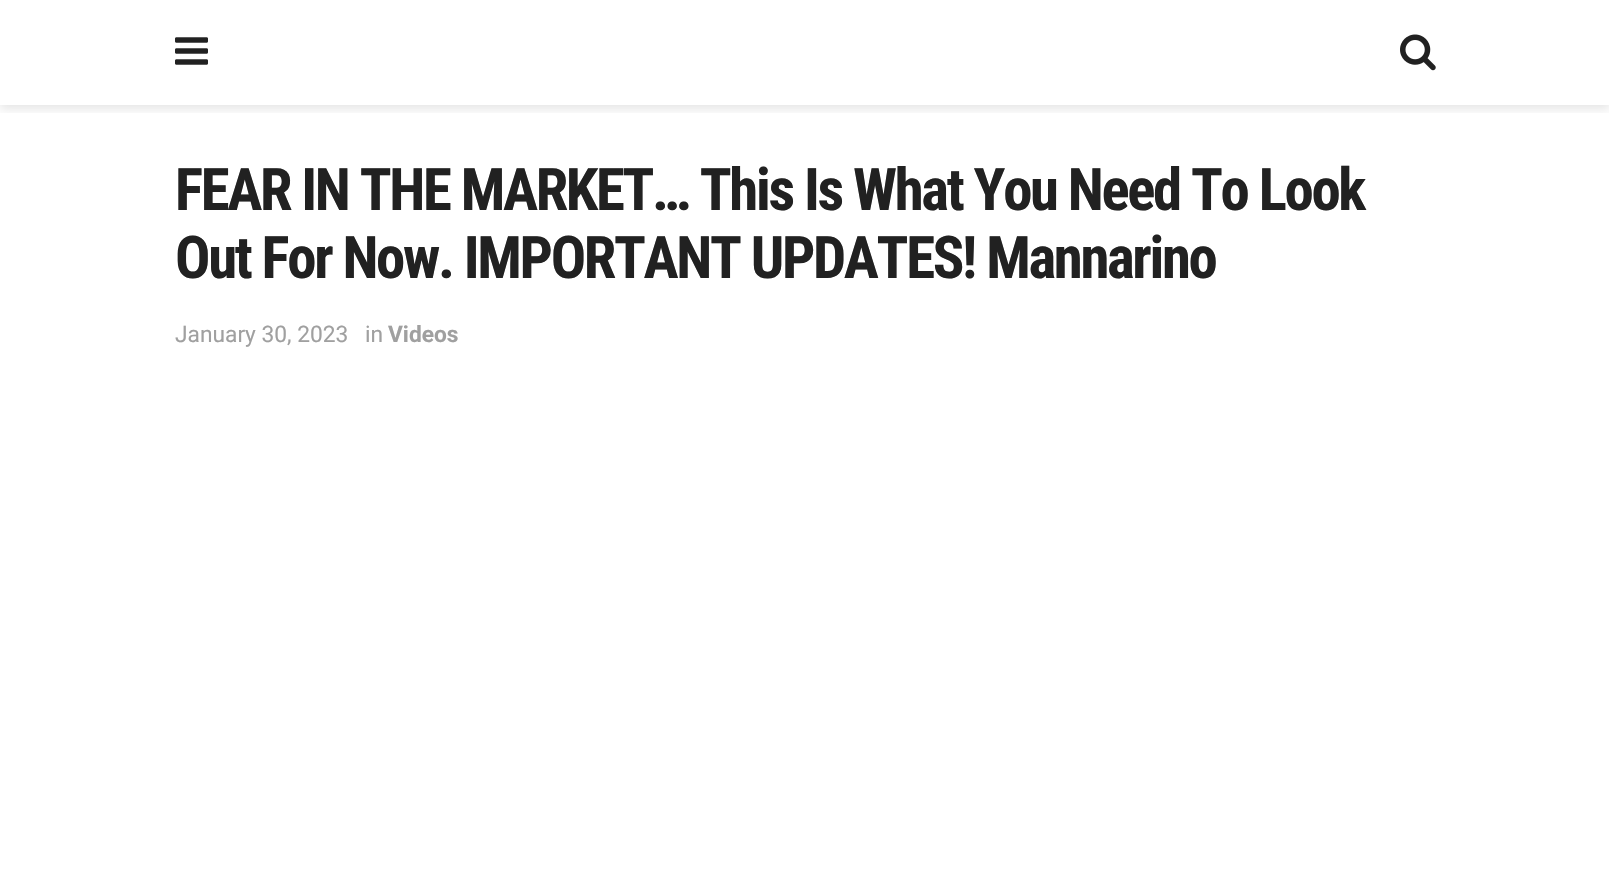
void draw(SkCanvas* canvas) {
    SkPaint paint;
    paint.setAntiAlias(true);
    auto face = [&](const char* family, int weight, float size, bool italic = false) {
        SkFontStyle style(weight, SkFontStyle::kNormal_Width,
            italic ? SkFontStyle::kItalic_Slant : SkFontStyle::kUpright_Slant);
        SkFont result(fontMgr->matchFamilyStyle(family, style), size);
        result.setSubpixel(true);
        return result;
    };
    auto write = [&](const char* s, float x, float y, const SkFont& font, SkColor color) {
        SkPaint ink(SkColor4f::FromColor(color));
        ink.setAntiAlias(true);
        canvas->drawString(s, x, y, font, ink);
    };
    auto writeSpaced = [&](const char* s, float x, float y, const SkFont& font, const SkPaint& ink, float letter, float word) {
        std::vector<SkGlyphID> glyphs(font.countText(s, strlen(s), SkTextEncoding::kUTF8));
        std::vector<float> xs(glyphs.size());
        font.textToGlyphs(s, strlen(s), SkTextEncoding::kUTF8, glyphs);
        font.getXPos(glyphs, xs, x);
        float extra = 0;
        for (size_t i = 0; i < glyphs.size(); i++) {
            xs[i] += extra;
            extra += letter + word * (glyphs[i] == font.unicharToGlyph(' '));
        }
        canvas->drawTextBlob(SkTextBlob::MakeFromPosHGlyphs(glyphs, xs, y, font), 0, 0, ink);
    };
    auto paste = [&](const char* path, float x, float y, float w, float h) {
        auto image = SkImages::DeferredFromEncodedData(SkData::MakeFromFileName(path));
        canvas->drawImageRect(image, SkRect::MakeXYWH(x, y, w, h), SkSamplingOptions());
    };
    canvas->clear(SK_ColorWHITE);
    canvas->save();
    canvas->clipRect(SkRect::MakeXYWH(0, 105, 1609, 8));
    paint.setColor(SkColorSetARGB(26, 0, 0, 0));
    paint.setMaskFilter(SkMaskFilter::MakeBlur(kNormal_SkBlurStyle, 5));
    canvas->drawRect(SkRect::MakeXYWH(0, 4, 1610, 105), paint);
    paint.setMaskFilter(nullptr);
    canvas->restore();
    paste("pic1.png", 175, 37, 33, 28);
    paste("pic2.png", 1400, 34, 36, 37);
    auto kFont1 = face("Roboto Condensed", 700, 58.8f);
    paint.setColor(SkColorSetRGB(33, 33, 33));
    writeSpaced("FEAR IN THE MARKET… This Is What You Need To Look", 175, 210, kFont1, paint, -2.35f, 0);
    writeSpaced("Out For Now. IMPORTANT UPDATES! Mannarino", 175, 278, kFont1, paint, -2.35f, 0);
    auto kFont2 = face("Roboto", 400, 22.75f);
    write("January 30, 2023", 175, 342, kFont2, SkColorSetRGB(160, 160, 160));
    write("in", 365, 342, kFont2, SkColorSetRGB(160, 160, 160));
    auto kFont3 = face("Roboto", 700, 22.75f);
    write("Videos", 388, 342, kFont3, SkColorSetRGB(160, 160, 160));
}
